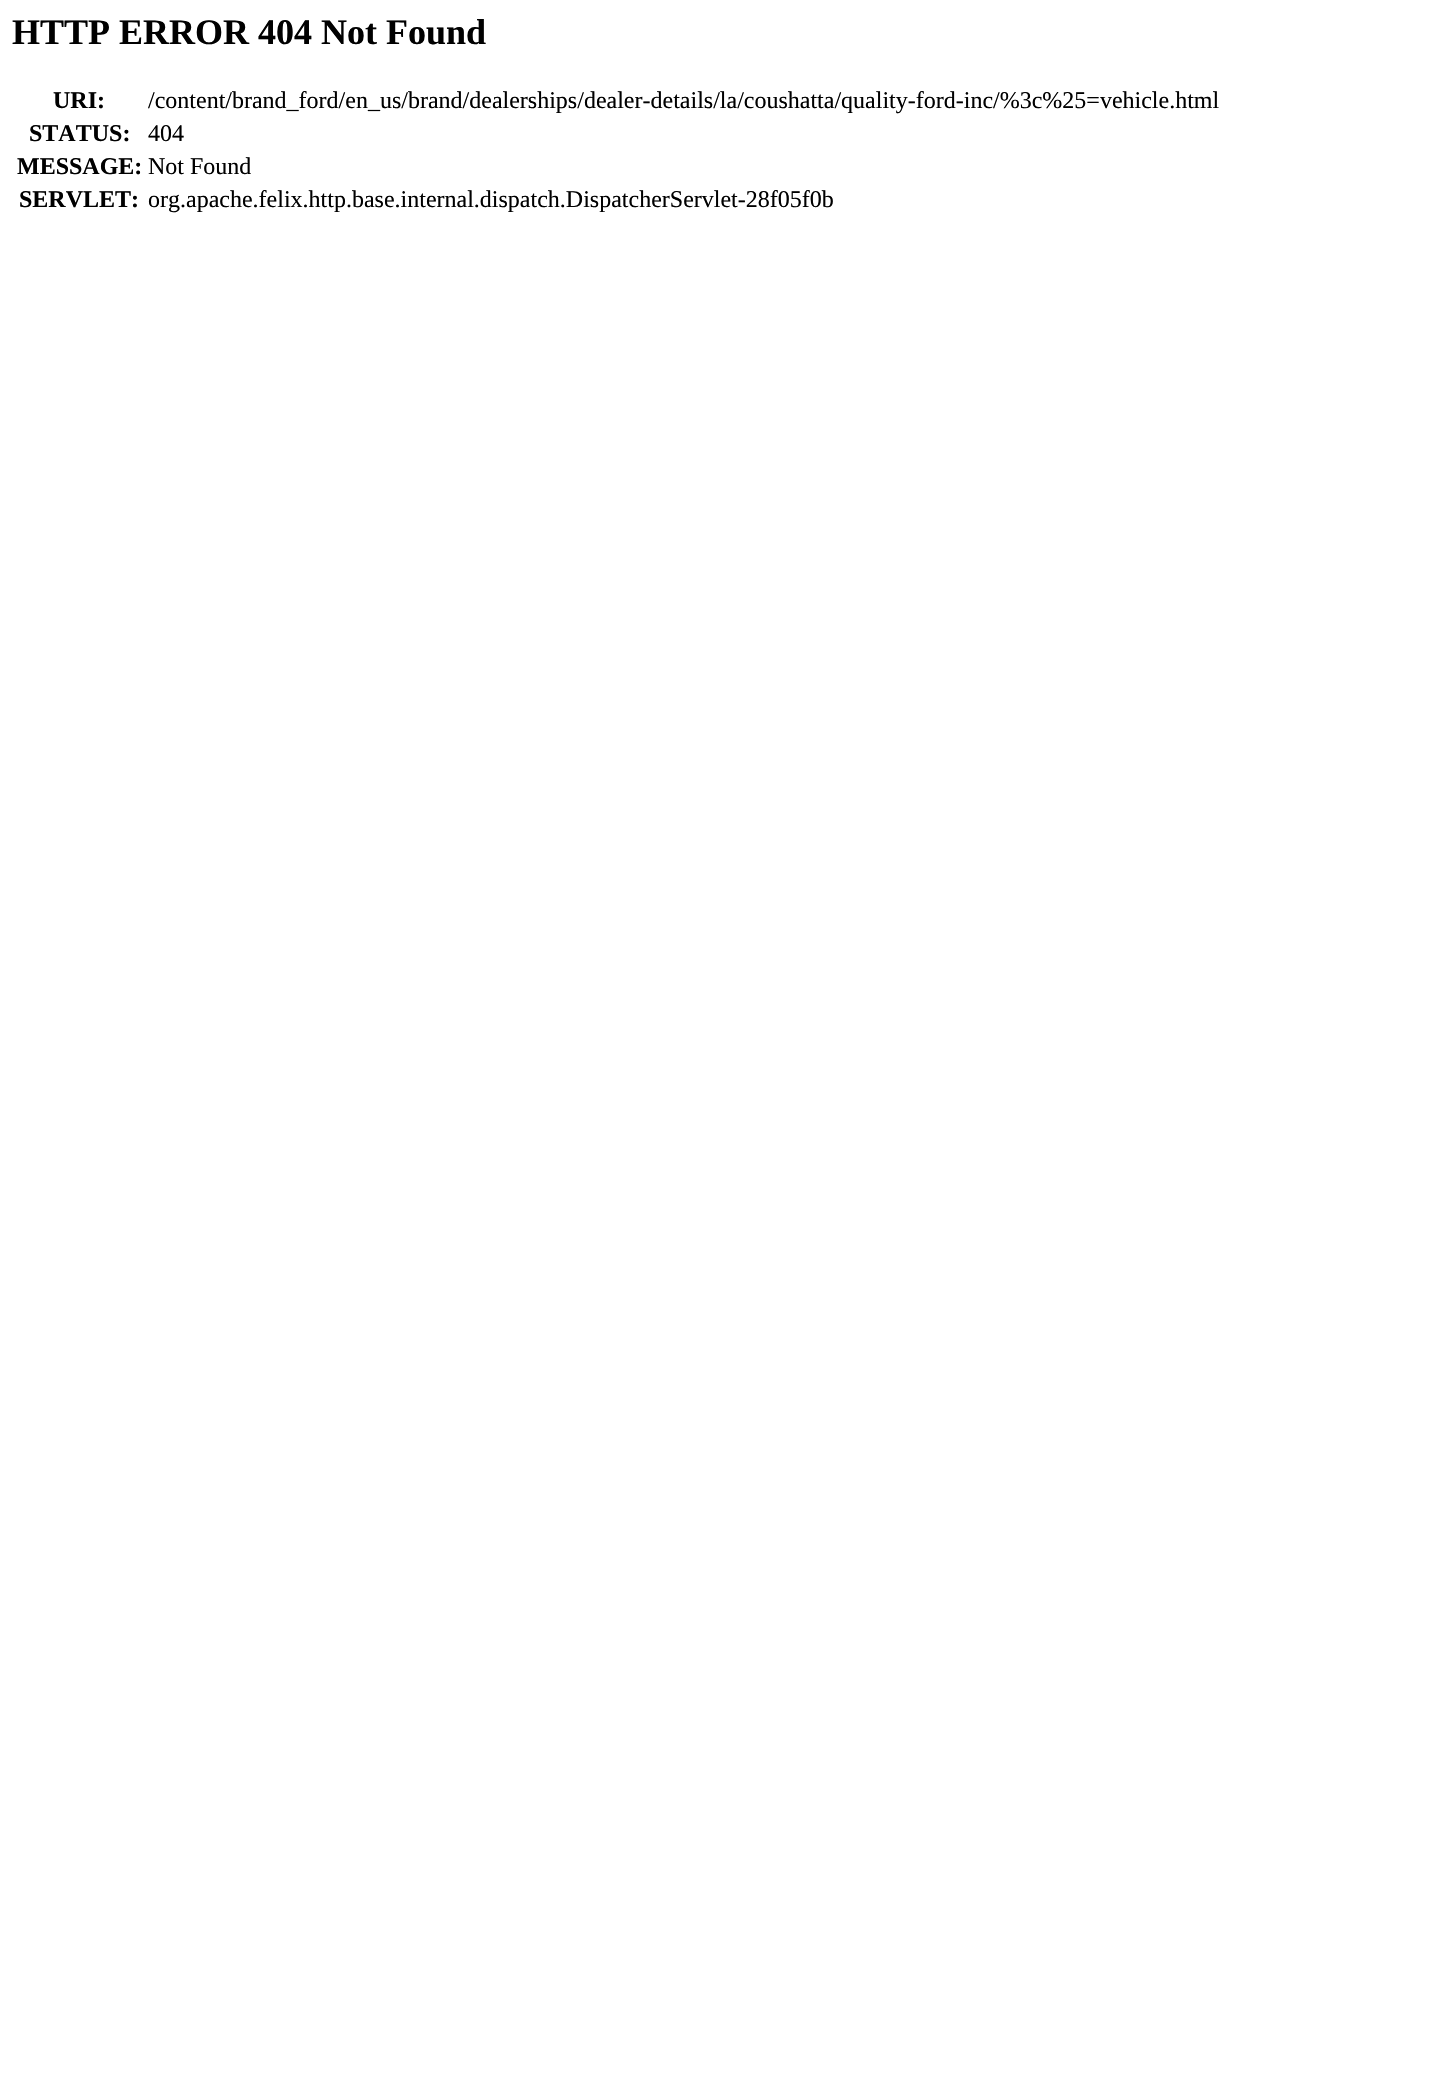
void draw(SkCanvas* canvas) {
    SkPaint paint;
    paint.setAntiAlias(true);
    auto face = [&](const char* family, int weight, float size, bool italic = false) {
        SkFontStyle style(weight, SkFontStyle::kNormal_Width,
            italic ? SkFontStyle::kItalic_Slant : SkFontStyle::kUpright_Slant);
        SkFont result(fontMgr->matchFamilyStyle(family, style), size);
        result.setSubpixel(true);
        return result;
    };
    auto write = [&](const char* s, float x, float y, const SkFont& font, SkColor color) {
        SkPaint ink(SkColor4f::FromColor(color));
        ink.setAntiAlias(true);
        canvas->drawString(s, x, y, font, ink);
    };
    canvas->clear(SK_ColorWHITE);
    auto kFont1 = face("Liberation Serif", 700, 36);
    write("HTTP ERROR 404 Not Found", 12, 44, kFont1, SK_ColorBLACK);
    auto kFont2 = face("Liberation Serif", 700, 24);
    write("URI:", 53, 108, kFont2, SK_ColorBLACK);
    auto kFont3 = face("Liberation Serif", 400, 24);
    write("/content/brand_ford/en_us/brand/dealerships/dealer-details/la/coushatta/quality-ford-inc/%3c%25=vehicle.html", 148, 108, kFont3, SK_ColorBLACK);
    write("STATUS:", 29, 141, kFont2, SK_ColorBLACK);
    write("404", 148, 141, kFont3, SK_ColorBLACK);
    write("MESSAGE:", 17, 174, kFont2, SK_ColorBLACK);
    write("Not Found", 148, 174, kFont3, SK_ColorBLACK);
    write("SERVLET:", 19, 207, kFont2, SK_ColorBLACK);
    write("org.apache.felix.http.base.internal.dispatch.DispatcherServlet-28f05f0b", 148, 207, kFont3, SK_ColorBLACK);
}
